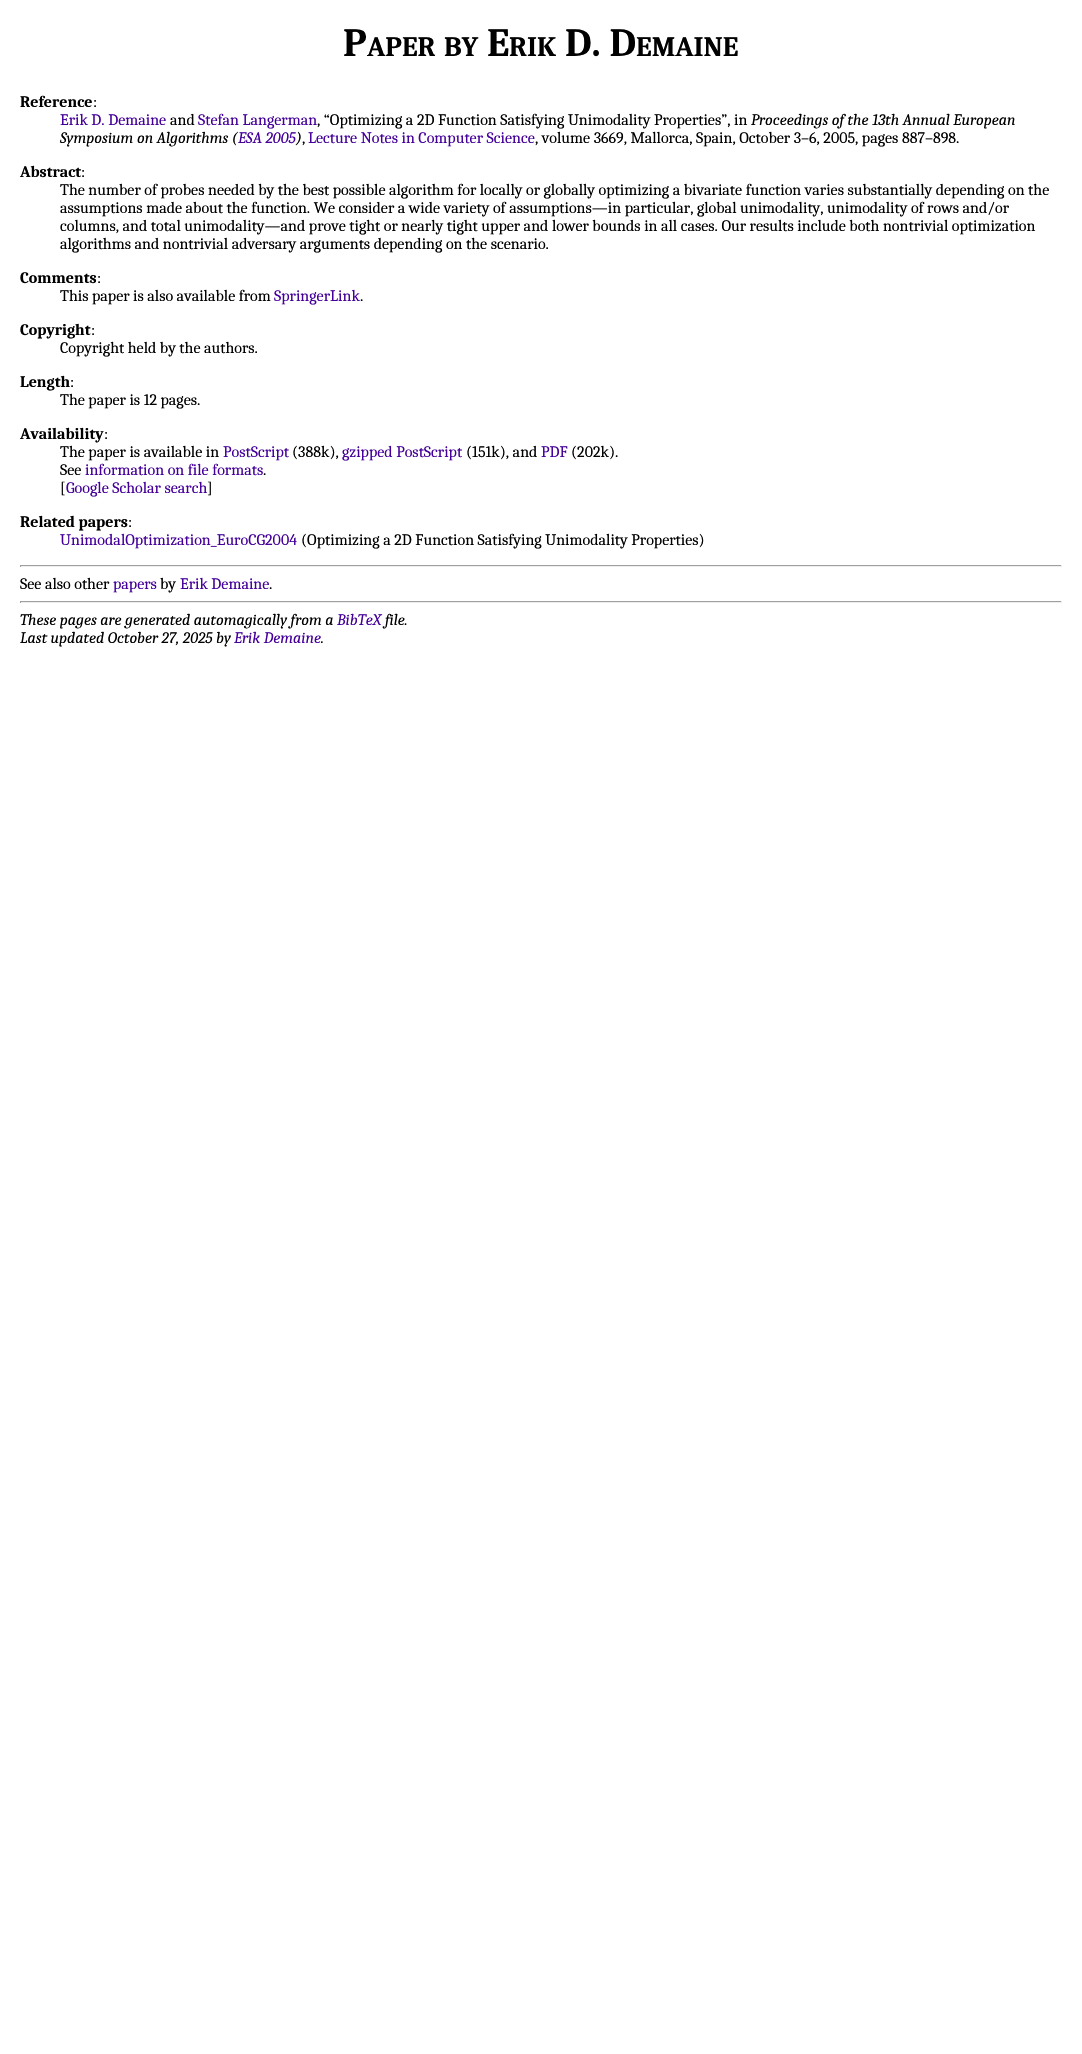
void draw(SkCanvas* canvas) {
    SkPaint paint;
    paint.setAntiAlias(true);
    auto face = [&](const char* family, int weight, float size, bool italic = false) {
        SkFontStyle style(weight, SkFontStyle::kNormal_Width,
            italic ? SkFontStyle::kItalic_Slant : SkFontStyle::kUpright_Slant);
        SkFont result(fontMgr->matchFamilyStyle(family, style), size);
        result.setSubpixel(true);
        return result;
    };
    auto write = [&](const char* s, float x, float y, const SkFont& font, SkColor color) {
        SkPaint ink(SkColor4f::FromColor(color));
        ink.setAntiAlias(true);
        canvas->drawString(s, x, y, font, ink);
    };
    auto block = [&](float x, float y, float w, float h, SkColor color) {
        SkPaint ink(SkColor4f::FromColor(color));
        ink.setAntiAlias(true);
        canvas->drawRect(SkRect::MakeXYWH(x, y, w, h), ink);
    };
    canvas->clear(SK_ColorWHITE);
    auto kFont1 = face("Caladea", 700, 40);
    write("P", 343, 56, kFont1, SK_ColorBLACK);
    auto kFont2 = face("Caladea", 700, 28);
    write("APER", 367, 56, kFont2, SK_ColorBLACK);
    write("BY", 444, 56, kFont2, SK_ColorBLACK);
    write("E", 487, 56, kFont1, SK_ColorBLACK);
    write("RIK", 509, 56, kFont2, SK_ColorBLACK);
    write("D. D", 565, 56, kFont1, SK_ColorBLACK);
    write("EMAINE", 636, 56, kFont2, SK_ColorBLACK);
    auto kFont3 = face("Caladea", 700, 16);
    write("Reference", 20, 107, kFont3, SK_ColorBLACK);
    auto kFont4 = face("Caladea", 400, 16);
    write(":", 93, 107, kFont4, SK_ColorBLACK);
    write("Erik D. Demaine", 60, 125, kFont4, SkColorSetRGB(68, 0, 153));
    write("and", 170, 125, kFont4, SK_ColorBLACK);
    write("Stefan Langerman", 198, 125, kFont4, SkColorSetRGB(68, 0, 153));
    write(", “Optimizing a 2D Function Satisfying Unimodality Properties”, in", 317, 125, kFont4, SK_ColorBLACK);
    auto kFont5 = face("Caladea", 400, 16, true);
    write("Proceedings of the 13th Annual European", 751, 125, kFont5, SK_ColorBLACK);
    write("Symposium on Algorithms (", 60, 143, kFont5, SK_ColorBLACK);
    write("ESA 2005", 238, 143, kFont5, SkColorSetRGB(68, 0, 153));
    write(")", 296, 143, kFont5, SK_ColorBLACK);
    write(",", 302, 143, kFont4, SK_ColorBLACK);
    write("Lecture Notes in Computer Science", 308, 143, kFont4, SkColorSetRGB(68, 0, 153));
    write(", volume 3669, Mallorca, Spain, October 3–6, 2005, pages 887–898.", 535, 143, kFont4, SK_ColorBLACK);
    write("Abstract", 20, 177, kFont3, SK_ColorBLACK);
    write(":", 81, 177, kFont4, SK_ColorBLACK);
    write("The number of probes needed by the best possible algorithm for locally or globally optimizing a bivariate function varies substantially depending on the", 60, 195, kFont4, SK_ColorBLACK);
    write("assumptions made about the function. We consider a wide variety of assumptions—in particular, global unimodality, unimodality of rows and/or", 60, 213, kFont4, SK_ColorBLACK);
    write("columns, and total unimodality—and prove tight or nearly tight upper and lower bounds in all cases. Our results include both nontrivial optimization", 60, 231, kFont4, SK_ColorBLACK);
    write("algorithms and nontrivial adversary arguments depending on the scenario.", 60, 249, kFont4, SK_ColorBLACK);
    write("Comments", 20, 283, kFont3, SK_ColorBLACK);
    write(":", 97, 283, kFont4, SK_ColorBLACK);
    write("This paper is also available from", 60, 301, kFont4, SK_ColorBLACK);
    write("SpringerLink", 274, 301, kFont4, SkColorSetRGB(68, 0, 153));
    write(".", 360, 301, kFont4, SK_ColorBLACK);
    write("Copyright", 20, 335, kFont3, SK_ColorBLACK);
    write(":", 91, 335, kFont4, SK_ColorBLACK);
    write("Copyright held by the authors.", 60, 353, kFont4, SK_ColorBLACK);
    write("Length", 20, 387, kFont3, SK_ColorBLACK);
    write(":", 70, 387, kFont4, SK_ColorBLACK);
    write("The paper is 12 pages.", 60, 405, kFont4, SK_ColorBLACK);
    write("Availability", 20, 439, kFont3, SK_ColorBLACK);
    write(":", 104, 439, kFont4, SK_ColorBLACK);
    write("The paper is available in", 60, 457, kFont4, SK_ColorBLACK);
    write("PostScript", 223, 457, kFont4, SkColorSetRGB(68, 0, 153));
    write("(388k),", 292, 457, kFont4, SK_ColorBLACK);
    write("gzipped PostScript", 342, 457, kFont4, SkColorSetRGB(68, 0, 153));
    write("(151k), and", 466, 457, kFont4, SK_ColorBLACK);
    write("PDF", 541, 457, kFont4, SkColorSetRGB(68, 0, 153));
    write("(202k).", 571, 457, kFont4, SK_ColorBLACK);
    write("See", 60, 475, kFont4, SK_ColorBLACK);
    write("information on file formats", 85, 475, kFont4, SkColorSetRGB(68, 0, 153));
    write(".", 263, 475, kFont4, SK_ColorBLACK);
    write("[", 60, 493, kFont4, SK_ColorBLACK);
    write("Google Scholar search", 66, 493, kFont4, SkColorSetRGB(68, 0, 153));
    write("]", 207, 493, kFont4, SK_ColorBLACK);
    write("Related papers", 20, 527, kFont3, SK_ColorBLACK);
    write(":", 128, 527, kFont4, SK_ColorBLACK);
    write("UnimodalOptimization_EuroCG2004", 60, 545, kFont4, SkColorSetRGB(68, 0, 153));
    write("(Optimizing a 2D Function Satisfying Unimodality Properties)", 301, 545, kFont4, SK_ColorBLACK);
    block(20, 565, 1042, 1, SkColorSetRGB(159, 159, 159));
    block(1061, 565, 1, 2, SkColorSetRGB(238, 238, 238));
    block(20, 566, 1042, 1, SkColorSetRGB(238, 238, 238));
    block(20, 565, 1, 2, SkColorSetRGB(159, 159, 159));
    write("See also other", 20, 589, kFont4, SK_ColorBLACK);
    write("papers", 113, 589, kFont4, SkColorSetRGB(68, 0, 153));
    write("by", 160, 589, kFont4, SK_ColorBLACK);
    write("Erik Demaine", 180, 589, kFont4, SkColorSetRGB(68, 0, 153));
    write(".", 269, 589, kFont4, SK_ColorBLACK);
    block(20, 601, 1042, 1, SkColorSetRGB(159, 159, 159));
    block(1061, 601, 1, 2, SkColorSetRGB(238, 238, 238));
    block(20, 602, 1042, 1, SkColorSetRGB(238, 238, 238));
    block(20, 601, 1, 2, SkColorSetRGB(159, 159, 159));
    write("These pages are generated automagically from a", 20, 625, kFont5, SK_ColorBLACK);
    write("BibTeX", 337, 625, kFont5, SkColorSetRGB(68, 0, 153));
    write("file.", 385, 625, kFont5, SK_ColorBLACK);
    write("Last updated October 27, 2025 by", 20, 643, kFont5, SK_ColorBLACK);
    write("Erik Demaine", 234, 643, kFont5, SkColorSetRGB(68, 0, 153));
    write(".", 321, 643, kFont5, SK_ColorBLACK);
}
